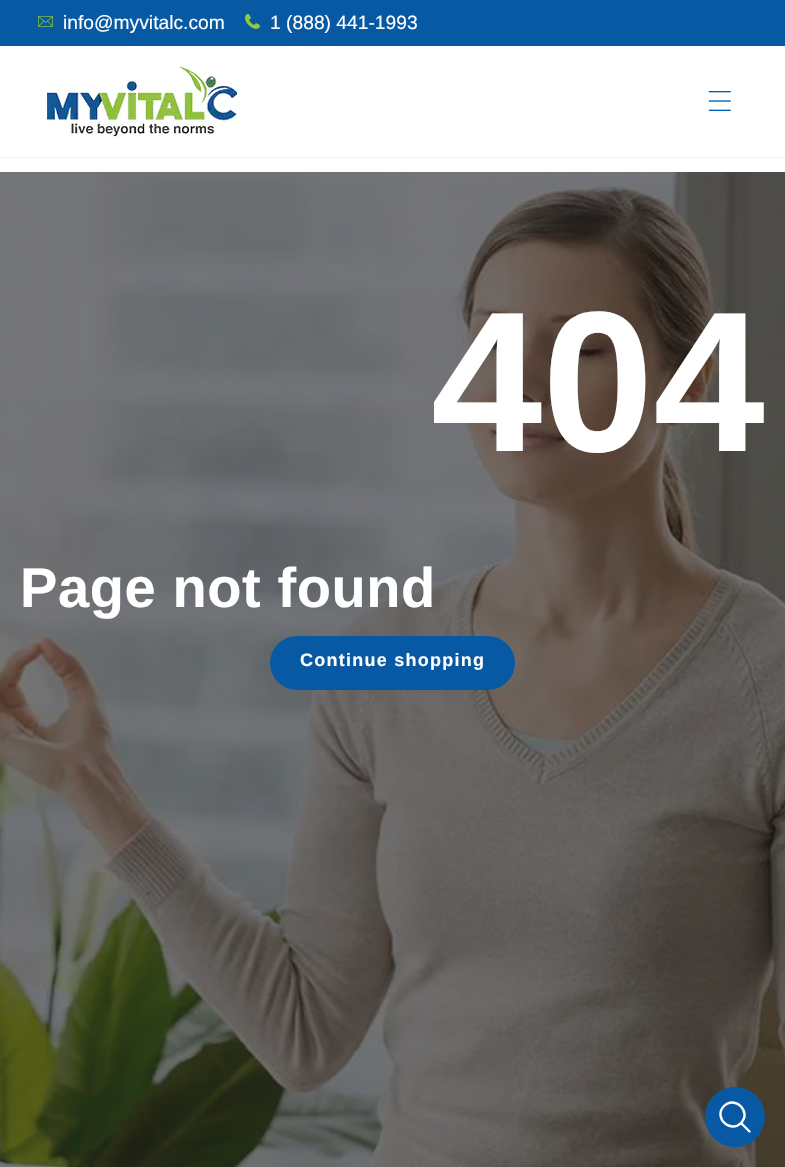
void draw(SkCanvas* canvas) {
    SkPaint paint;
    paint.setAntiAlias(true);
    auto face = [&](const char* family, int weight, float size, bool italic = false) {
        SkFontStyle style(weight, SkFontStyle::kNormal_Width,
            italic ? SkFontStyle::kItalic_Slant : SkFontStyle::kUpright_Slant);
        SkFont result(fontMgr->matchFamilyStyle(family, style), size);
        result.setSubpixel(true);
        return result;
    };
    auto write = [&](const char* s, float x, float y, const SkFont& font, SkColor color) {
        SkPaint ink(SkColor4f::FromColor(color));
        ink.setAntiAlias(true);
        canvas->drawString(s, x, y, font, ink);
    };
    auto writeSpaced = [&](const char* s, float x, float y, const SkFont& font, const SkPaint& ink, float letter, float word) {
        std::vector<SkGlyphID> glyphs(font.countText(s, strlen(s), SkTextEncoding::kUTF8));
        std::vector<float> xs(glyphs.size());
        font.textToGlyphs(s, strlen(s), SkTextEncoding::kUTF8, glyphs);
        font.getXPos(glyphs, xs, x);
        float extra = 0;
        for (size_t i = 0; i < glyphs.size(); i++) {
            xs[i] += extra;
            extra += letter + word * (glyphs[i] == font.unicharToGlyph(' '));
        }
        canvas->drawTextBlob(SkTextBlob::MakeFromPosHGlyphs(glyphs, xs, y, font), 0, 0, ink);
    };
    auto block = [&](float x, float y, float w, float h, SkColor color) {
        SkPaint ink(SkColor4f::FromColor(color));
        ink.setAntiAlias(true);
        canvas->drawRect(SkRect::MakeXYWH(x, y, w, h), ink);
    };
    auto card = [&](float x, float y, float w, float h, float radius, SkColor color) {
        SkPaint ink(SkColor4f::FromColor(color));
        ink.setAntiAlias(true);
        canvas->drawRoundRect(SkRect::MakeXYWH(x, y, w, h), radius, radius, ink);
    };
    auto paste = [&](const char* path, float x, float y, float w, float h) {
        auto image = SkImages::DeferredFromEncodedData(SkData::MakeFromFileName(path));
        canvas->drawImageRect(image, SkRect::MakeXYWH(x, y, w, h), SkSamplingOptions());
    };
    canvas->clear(SK_ColorWHITE);
    block(0, 0, 785, 46, SkColorSetRGB(8, 89, 163));
    paste("pic1.png", 38, 16, 15, 11);
    auto kFont1 = face("Liberation Sans", 400, 19.25f);
    write("info@myvitalc.com", 63, 29, kFont1, SK_ColorWHITE);
    paste("pic2.png", 245, 14, 15, 15);
    write("1 (888) 441-1993", 270, 29, kFont1, SK_ColorWHITE);
    block(0, 157, 785, 1, SkColorSetRGB(235, 242, 249));
    paste("pic3.png", 47, 66, 190, 71);
    paste("pic4.png", 708, 91, 23, 20);
    paste("pic5.png", 0, 172, 785, 995);
    auto kFont2 = face("Liberation Sans", 700, 200);
    write("404", 431, 451, kFont2, SK_ColorWHITE);
    auto kFont3 = face("Liberation Sans", 700, 56);
    paint.setColor(SK_ColorWHITE);
    writeSpaced("Page not found", 20, 607, kFont3, paint, 0.6f, 0);
    card(270, 636, 245, 54, 27, SkColorSetRGB(8, 89, 163));
    auto kFont4 = face("Liberation Sans", 700, 18);
    writeSpaced("Continue shopping", 300, 666, kFont4, paint, 1.25f, 0);
    paint.setColor(SkColorSetRGB(8, 89, 163));
    canvas->drawCircle(735, 1117, 30, paint);
    paint.setStyle(SkPaint::kStroke_Style);
    paint.setStrokeWidth(2.4f);
    paint.setStrokeCap(SkPaint::kRound_Cap);
    paint.setStrokeJoin(SkPaint::kRound_Join);
    paint.setColor(SK_ColorWHITE);
    canvas->drawPath(SkPathBuilder().moveTo(749.5f, 1131.5f).lineTo(741, 1123).moveTo(741, 1123).cubicTo(752, 1112, 735, 1095, 724, 1106).cubicTo(713, 1117, 730, 1134, 741, 1123).close().detach(), paint);
}
